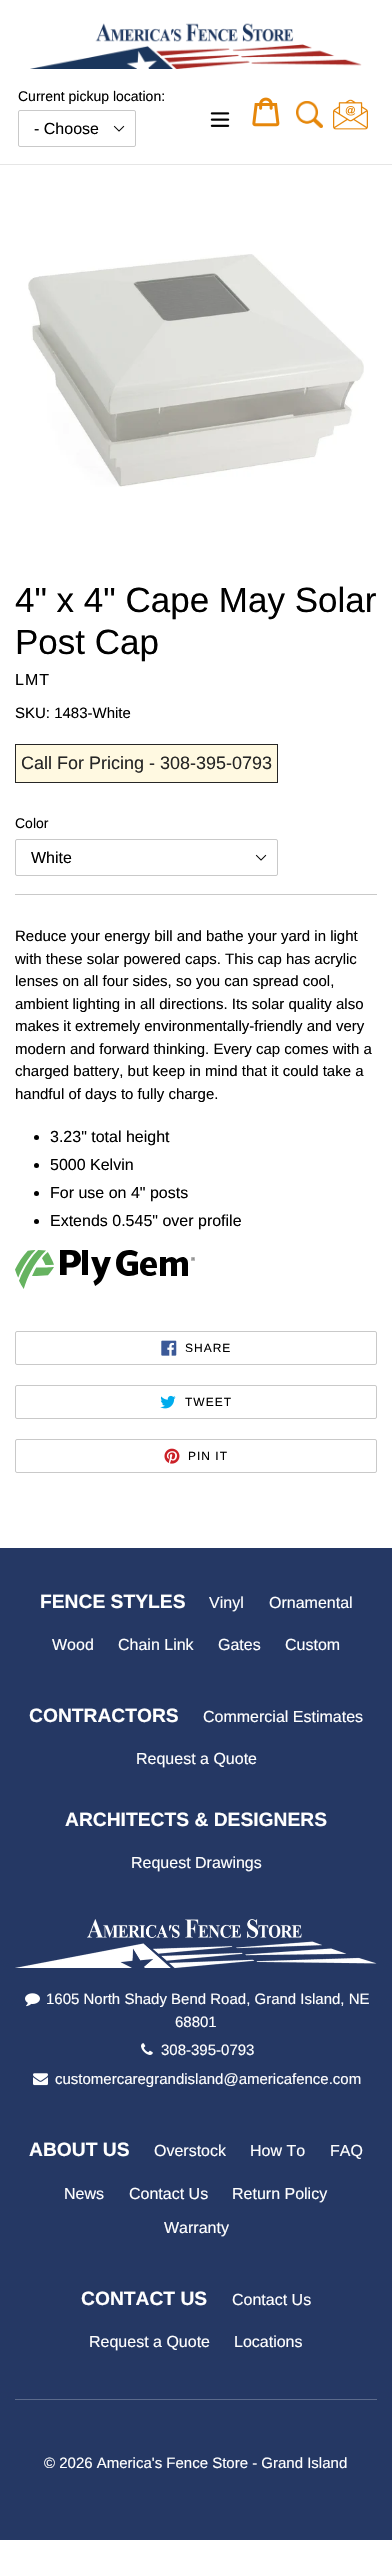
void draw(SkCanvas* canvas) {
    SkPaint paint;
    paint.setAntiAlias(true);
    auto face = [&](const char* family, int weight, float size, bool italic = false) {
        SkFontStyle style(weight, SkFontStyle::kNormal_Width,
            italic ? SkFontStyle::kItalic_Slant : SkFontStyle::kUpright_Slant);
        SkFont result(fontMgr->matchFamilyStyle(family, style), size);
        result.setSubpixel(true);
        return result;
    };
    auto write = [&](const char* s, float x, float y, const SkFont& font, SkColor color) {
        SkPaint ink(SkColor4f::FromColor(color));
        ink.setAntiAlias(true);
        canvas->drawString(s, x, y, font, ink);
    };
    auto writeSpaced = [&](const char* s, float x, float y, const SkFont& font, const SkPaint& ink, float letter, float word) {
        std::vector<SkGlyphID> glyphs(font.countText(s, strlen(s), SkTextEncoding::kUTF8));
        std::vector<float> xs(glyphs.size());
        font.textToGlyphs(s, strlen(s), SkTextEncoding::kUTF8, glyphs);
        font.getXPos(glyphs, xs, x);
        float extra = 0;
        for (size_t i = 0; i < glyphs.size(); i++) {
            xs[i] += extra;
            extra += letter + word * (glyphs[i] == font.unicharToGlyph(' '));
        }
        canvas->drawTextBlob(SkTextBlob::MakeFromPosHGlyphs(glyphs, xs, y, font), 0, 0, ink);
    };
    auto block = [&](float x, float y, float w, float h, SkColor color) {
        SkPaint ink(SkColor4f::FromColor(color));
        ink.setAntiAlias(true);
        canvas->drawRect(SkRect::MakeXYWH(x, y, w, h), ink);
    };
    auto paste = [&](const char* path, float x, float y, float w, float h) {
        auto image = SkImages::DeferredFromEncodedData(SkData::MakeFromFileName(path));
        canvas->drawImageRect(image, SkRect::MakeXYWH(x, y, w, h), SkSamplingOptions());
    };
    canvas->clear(SK_ColorWHITE);
    block(0, 164, 392, 1, SkColorSetRGB(230, 230, 230));
    paste("pic1.png", 30, 23, 332, 46);
    auto kFont1 = face("Liberation Sans", 400, 14);
    write("Current pickup location:", 18, 101, kFont1, SK_ColorBLACK);
    paste("pic2.png", 113, 125, 12, 7);
    paint.setStyle(SkPaint::kStroke_Style);
    paint.setStrokeWidth(1);
    paint.setColor(SkColorSetRGB(201, 201, 201));
    canvas->drawRoundRect(SkRect::MakeXYWH(18.5f, 110.5f, 117, 36), 1.5f, 1.5f, paint);
    auto kFont2 = face("Liberation Sans", 400, 16);
    write("- Choose", 34, 134, kFont2, SK_ColorBLACK);
    paste("pic3.png", 210, 112, 20, 15);
    paste("pic4.png", 252, 97, 28, 30);
    paste("pic5.png", 296, 101, 27, 27);
    paste("pic6.png", 333, 99, 35, 31);
    paste("pic7.png", 28, 254, 336, 233);
    auto kFont3 = face("Liberation Sans", 400, 35);
    write("4\" x 4\" Cape May Solar", 15, 612, kFont3, SK_ColorBLACK);
    write("Post Cap", 15, 654, kFont3, SK_ColorBLACK);
    paint.setStyle(SkPaint::kFill_Style);
    paint.setColor(SK_ColorBLACK);
    writeSpaced("LMT", 15, 685, kFont2, paint, 1, 0);
    auto kFont4 = face("Liberation Sans", 400, 15);
    write("SKU: 1483-White", 15, 718, kFont4, SK_ColorBLACK);
    paint.setColor(SkColorSetRGB(255, 249, 225));
    canvas->drawRect(SkRect::MakeXYWH(15.5f, 744.5f, 262, 38), paint);
    paint.setStyle(SkPaint::kStroke_Style);
    paint.setColor(SkColorSetRGB(38, 38, 38));
    canvas->drawRect(SkRect::MakeXYWH(15.5f, 744.5f, 262, 38), paint);
    auto kFont5 = face("Liberation Sans", 400, 18);
    write("Call For Pricing - 308-395-0793", 21, 769, kFont5, SkColorSetRGB(38, 38, 38));
    write("Color", 15, 828, kFont1, SK_ColorBLACK);
    paste("pic2.png", 255, 854, 12, 7);
    paint.setColor(SkColorSetRGB(201, 201, 201));
    canvas->drawRoundRect(SkRect::MakeXYWH(15.5f, 839.5f, 262, 36), 1.5f, 1.5f, paint);
    write("White", 31, 863, kFont2, SK_ColorBLACK);
    block(15, 894, 362, 1, SkColorSetRGB(201, 201, 201));
    write("Reduce your energy bill and bathe your yard in light", 15, 941, kFont4, SK_ColorBLACK);
    write("with these solar powered caps. This cap has acrylic", 15, 964, kFont4, SK_ColorBLACK);
    write("lenses on all four sides, so you can spread cool,", 15, 986, kFont4, SK_ColorBLACK);
    write("ambient lighting in all directions. Its solar quality also", 15, 1009, kFont4, SK_ColorBLACK);
    write("makes it extremely environmentally-friendly and very", 15, 1031, kFont4, SK_ColorBLACK);
    write("modern and forward thinking. Every cap comes with a", 15, 1054, kFont4, SK_ColorBLACK);
    write("charged battery, but keep in mind that it could take a", 15, 1076, kFont4, SK_ColorBLACK);
    write("handful of days to fully charge.", 15, 1099, kFont4, SK_ColorBLACK);
    paint.setStyle(SkPaint::kFill_Style);
    paint.setColor(SK_ColorBLACK);
    canvas->drawCircle(36.5f, 1137.5f, 2.5f, paint);
    write("3.23\" total height", 50, 1142, kFont2, SK_ColorBLACK);
    canvas->drawCircle(36.5f, 1165.5f, 2.5f, paint);
    write("5000 Kelvin", 50, 1170, kFont2, SK_ColorBLACK);
    canvas->drawCircle(36.5f, 1193.5f, 2.5f, paint);
    write("For use on 4\" posts", 50, 1198, kFont2, SK_ColorBLACK);
    canvas->drawCircle(36.5f, 1221.5f, 2.5f, paint);
    write("Extends 0.545\" over profile", 50, 1226, kFont2, SK_ColorBLACK);
    paste("pic8.png", 15, 1250, 180, 39);
    paint.setStyle(SkPaint::kStroke_Style);
    paint.setColor(SkColorSetRGB(201, 201, 201));
    canvas->drawRoundRect(SkRect::MakeXYWH(15.5f, 1331.5f, 361, 33), 1.5f, 1.5f, paint);
    paste("pic9.png", 161, 1340, 16, 16);
    auto kFont6 = face("Liberation Sans", 400, 12);
    paint.setStyle(SkPaint::kFill_Style);
    paint.setColor(SK_ColorBLACK);
    writeSpaced("SHARE", 185, 1352, kFont6, paint, 1, 0);
    paint.setStyle(SkPaint::kStroke_Style);
    paint.setColor(SkColorSetRGB(201, 201, 201));
    canvas->drawRoundRect(SkRect::MakeXYWH(15.5f, 1385.5f, 361, 33), 1.5f, 1.5f, paint);
    paste("pic10.png", 160, 1395, 16, 14);
    paint.setStyle(SkPaint::kFill_Style);
    paint.setColor(SK_ColorBLACK);
    writeSpaced("TWEET", 185, 1406, kFont6, paint, 1, 0);
    paint.setStyle(SkPaint::kStroke_Style);
    paint.setColor(SkColorSetRGB(201, 201, 201));
    canvas->drawRoundRect(SkRect::MakeXYWH(15.5f, 1439.5f, 361, 33), 1.5f, 1.5f, paint);
    paste("pic11.png", 164, 1448, 16, 16);
    paint.setStyle(SkPaint::kFill_Style);
    paint.setColor(SK_ColorBLACK);
    writeSpaced("PIN IT", 188, 1460, kFont6, paint, 1, 0);
    block(0, 1548, 392, 992, SkColorSetRGB(37, 56, 100));
    auto kFont7 = face("Liberation Sans", 700, 19.25f);
    write("FENCE STYLES", 40, 1608, kFont7, SK_ColorWHITE);
    write("Vinyl", 209, 1608, kFont2, SK_ColorWHITE);
    write("Ornamental", 269, 1608, kFont2, SK_ColorWHITE);
    write("Wood", 52, 1650, kFont2, SK_ColorWHITE);
    write("Chain Link", 118, 1650, kFont2, SK_ColorWHITE);
    write("Gates", 218, 1650, kFont2, SK_ColorWHITE);
    write("Custom", 285, 1650, kFont2, SK_ColorWHITE);
    write("CONTRACTORS", 29, 1722, kFont7, SK_ColorWHITE);
    write("Commercial Estimates", 203, 1722, kFont2, SK_ColorWHITE);
    write("Request a Quote", 136, 1764, kFont2, SK_ColorWHITE);
    write("ARCHITECTS & DESIGNERS", 65, 1826, kFont7, SK_ColorWHITE);
    write("Request Drawings", 131, 1868, kFont2, SK_ColorWHITE);
    paste("pic12.png", 15, 1919, 362, 49);
    paste("pic13.png", 25, 1993, 15, 14);
    write("1605 North Shady Bend Road, Grand Island, NE", 46, 2004, kFont4, SK_ColorWHITE);
    write("68801", 175, 2027, kFont4, SK_ColorWHITE);
    paste("pic14.png", 141, 2043, 12, 12);
    write("308-395-0793", 161, 2055, kFont4, SK_ColorWHITE);
    paste("pic15.png", 33, 2073, 15, 13);
    write("customercaregrandisland@americafence.com", 55, 2084, kFont4, SK_ColorWHITE);
    write("ABOUT US", 29, 2156, kFont7, SK_ColorWHITE);
    write("Overstock", 154, 2156, kFont2, SK_ColorWHITE);
    write("How To", 250, 2156, kFont2, SK_ColorWHITE);
    write("FAQ", 330, 2156, kFont2, SK_ColorWHITE);
    write("News", 64, 2199, kFont2, SK_ColorWHITE);
    write("Contact Us", 129, 2199, kFont2, SK_ColorWHITE);
    write("Return Policy", 232, 2199, kFont2, SK_ColorWHITE);
    write("Warranty", 164, 2233, kFont2, SK_ColorWHITE);
    write("CONTACT US", 81, 2305, kFont7, SK_ColorWHITE);
    write("Contact Us", 232, 2305, kFont2, SK_ColorWHITE);
    write("Request a Quote", 89, 2347, kFont2, SK_ColorWHITE);
    write("Locations", 234, 2347, kFont2, SK_ColorWHITE);
    block(15, 2399, 362, 1, SkColorSetRGB(92, 106, 139));
    write("© 2026 America's Fence Store - Grand Island", 44, 2468, kFont4, SK_ColorWHITE);
}
